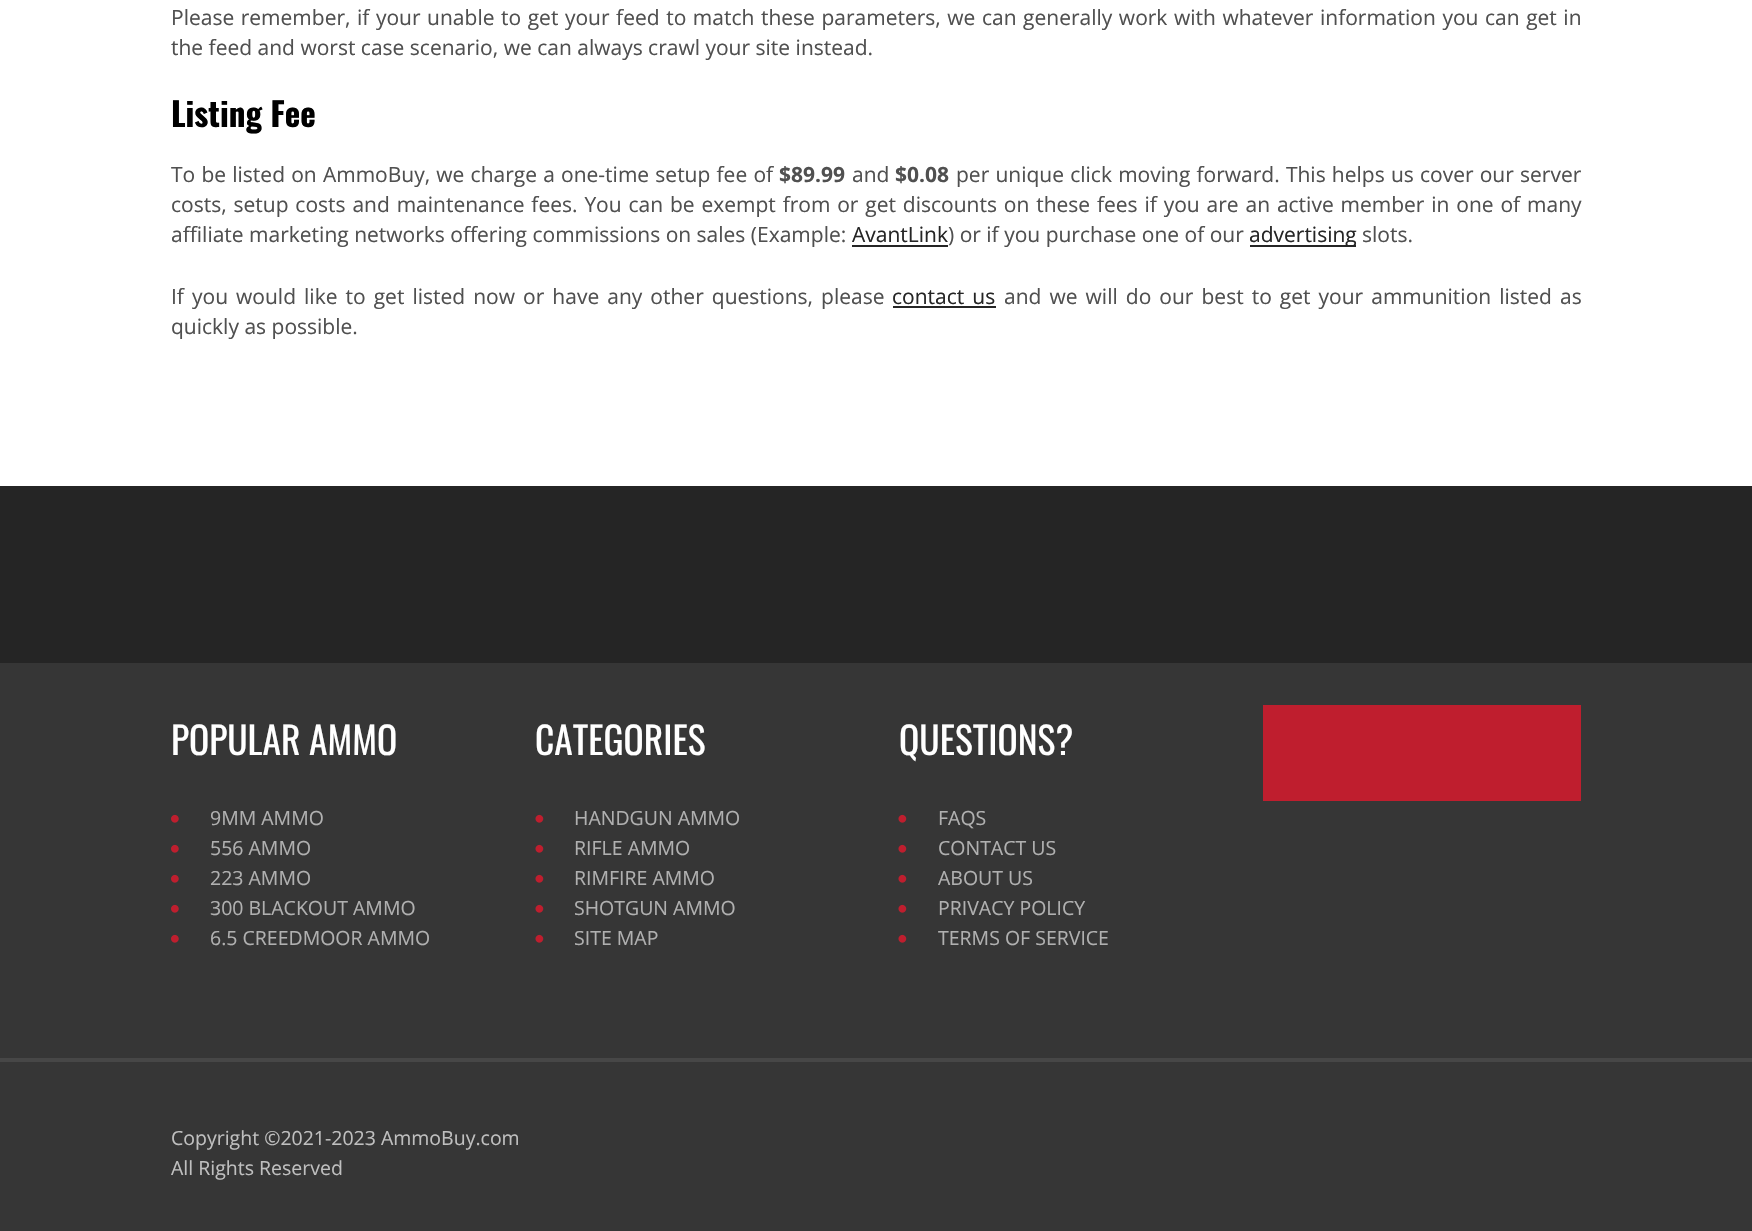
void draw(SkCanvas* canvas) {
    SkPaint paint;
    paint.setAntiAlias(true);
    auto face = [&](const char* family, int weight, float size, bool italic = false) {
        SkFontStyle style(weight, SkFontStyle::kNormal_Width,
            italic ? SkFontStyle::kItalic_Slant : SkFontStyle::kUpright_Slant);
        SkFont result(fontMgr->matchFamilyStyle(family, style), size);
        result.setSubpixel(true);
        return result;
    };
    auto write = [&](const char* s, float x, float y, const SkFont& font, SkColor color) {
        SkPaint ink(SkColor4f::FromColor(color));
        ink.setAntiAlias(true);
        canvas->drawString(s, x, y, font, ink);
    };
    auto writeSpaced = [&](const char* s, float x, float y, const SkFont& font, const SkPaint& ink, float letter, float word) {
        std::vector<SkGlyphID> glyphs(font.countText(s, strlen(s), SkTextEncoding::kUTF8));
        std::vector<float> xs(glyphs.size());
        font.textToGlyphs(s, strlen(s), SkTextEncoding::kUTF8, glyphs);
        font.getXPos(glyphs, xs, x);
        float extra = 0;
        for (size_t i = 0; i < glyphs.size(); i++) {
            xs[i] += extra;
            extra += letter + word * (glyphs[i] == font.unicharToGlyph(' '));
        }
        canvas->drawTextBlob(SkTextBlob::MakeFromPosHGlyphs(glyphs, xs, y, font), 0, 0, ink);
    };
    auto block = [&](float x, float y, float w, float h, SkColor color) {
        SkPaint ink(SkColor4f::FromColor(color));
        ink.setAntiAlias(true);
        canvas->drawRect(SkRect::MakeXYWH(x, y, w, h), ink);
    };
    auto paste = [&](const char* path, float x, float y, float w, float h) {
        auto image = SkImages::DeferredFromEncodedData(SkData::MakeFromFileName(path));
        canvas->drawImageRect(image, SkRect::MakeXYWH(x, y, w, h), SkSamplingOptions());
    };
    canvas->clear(SK_ColorWHITE);
    auto kFont1 = face("Open Sans", 400, 21);
    paint.setColor(SkColorSetRGB(80, 80, 80));
    writeSpaced("Please remember, if your unable to get your feed to match these parameters, we can generally work with whatever information you can get in", 171, 25, kFont1, paint, 0, 1.1f);
    write("the feed and worst case scenario, we can always crawl your site instead.", 171, 55, kFont1, SkColorSetRGB(80, 80, 80));
    auto kFont2 = face("Oswald", 700, 33);
    write("Listing Fee", 171, 127, kFont2, SK_ColorBLACK);
    writeSpaced("To be listed on AmmoBuy, we charge a one-time setup fee of", 171, 182, kFont1, paint, 0, 0.75f);
    auto kFont3 = face("Open Sans", 700, 21);
    write("$89.99", 779, 182, kFont3, SkColorSetRGB(80, 80, 80));
    write("and", 852, 182, kFont1, SkColorSetRGB(80, 80, 80));
    write("$0.08", 895, 182, kFont3, SkColorSetRGB(80, 80, 80));
    writeSpaced("per unique click moving forward. This helps us cover our server", 956, 182, kFont1, paint, 0, 0.75f);
    writeSpaced("costs, setup costs and maintenance fees. You can be exempt from or get discounts on these fees if you are an active member in one of many", 171, 212, kFont1, paint, 0, 1.4f);
    write("affiliate marketing networks offering commissions on sales (Example:", 171, 242, kFont1, SkColorSetRGB(80, 80, 80));
    write("AvantLink", 852, 242, kFont1, SkColorSetRGB(37, 37, 37));
    block(852, 245, 96, 2, SkColorSetRGB(37, 37, 37));
    write(") or if you purchase one of our", 948, 242, kFont1, SkColorSetRGB(80, 80, 80));
    block(1250, 245, 106, 2, SkColorSetRGB(37, 37, 37));
    write("advertising", 1249, 242, kFont1, SkColorSetRGB(37, 37, 37));
    write("slots.", 1362, 242, kFont1, SkColorSetRGB(80, 80, 80));
    writeSpaced("If you would like to get listed now or have any other questions, please", 171, 304, kFont1, paint, 0, 2.6f);
    paint.setColor(SkColorSetRGB(37, 37, 37));
    writeSpaced("contact us", 892, 304, kFont1, paint, 0, 2.6f);
    block(893, 306, 103, 2, SkColorSetRGB(37, 37, 37));
    paint.setColor(SkColorSetRGB(80, 80, 80));
    writeSpaced("and we will do our best to get your ammunition listed as", 1004, 304, kFont1, paint, 0, 2.6f);
    write("quickly as possible.", 171, 334, kFont1, SkColorSetRGB(80, 80, 80));
    block(0, 663, 1752, 395, SkColorSetRGB(54, 54, 54));
    block(0, 486, 1752, 177, SkColorSetRGB(37, 37, 37));
    auto kFont4 = face("Oswald", 400, 37.5f);
    write("POPULAR AMMO", 171, 755, kFont4, SK_ColorWHITE);
    paste("pic1.png", 171, 814, 8, 9);
    auto kFont5 = face("Open Sans", 400, 19.5f);
    write("9MM AMMO", 210, 825, kFont5, SkColorSetRGB(176, 176, 176));
    paste("pic1.png", 171, 844, 8, 9);
    write("556 AMMO", 210, 855, kFont5, SkColorSetRGB(176, 176, 176));
    paste("pic1.png", 171, 874, 8, 9);
    write("223 AMMO", 210, 885, kFont5, SkColorSetRGB(176, 176, 176));
    paste("pic1.png", 171, 904, 8, 9);
    write("300 BLACKOUT AMMO", 210, 915, kFont5, SkColorSetRGB(176, 176, 176));
    paste("pic1.png", 171, 934, 8, 9);
    write("6.5 CREEDMOOR AMMO", 210, 945, kFont5, SkColorSetRGB(176, 176, 176));
    write("CATEGORIES", 535, 755, kFont4, SK_ColorWHITE);
    paste("pic2.png", 535, 814, 9, 9);
    write("HANDGUN AMMO", 574, 825, kFont5, SkColorSetRGB(176, 176, 176));
    paste("pic2.png", 535, 844, 9, 9);
    write("RIFLE AMMO", 574, 855, kFont5, SkColorSetRGB(176, 176, 176));
    paste("pic2.png", 535, 874, 9, 9);
    write("RIMFIRE AMMO", 574, 885, kFont5, SkColorSetRGB(176, 176, 176));
    paste("pic2.png", 535, 904, 9, 9);
    write("SHOTGUN AMMO", 574, 915, kFont5, SkColorSetRGB(176, 176, 176));
    paste("pic2.png", 535, 934, 9, 9);
    write("SITE MAP", 574, 945, kFont5, SkColorSetRGB(176, 176, 176));
    write("QUESTIONS?", 899, 755, kFont4, SK_ColorWHITE);
    paste("pic2.png", 898, 814, 9, 9);
    write("FAQS", 938, 825, kFont5, SkColorSetRGB(176, 176, 176));
    paste("pic2.png", 898, 844, 9, 9);
    write("CONTACT US", 938, 855, kFont5, SkColorSetRGB(176, 176, 176));
    paste("pic2.png", 898, 874, 9, 9);
    write("ABOUT US", 938, 885, kFont5, SkColorSetRGB(176, 176, 176));
    paste("pic2.png", 898, 904, 9, 9);
    write("PRIVACY POLICY", 938, 915, kFont5, SkColorSetRGB(176, 176, 176));
    paste("pic2.png", 898, 934, 9, 9);
    write("TERMS OF SERVICE", 938, 945, kFont5, SkColorSetRGB(176, 176, 176));
    block(1263, 705, 318, 96, SkColorSetRGB(191, 30, 46));
    block(0, 1058, 1752, 4, SkColorSetRGB(71, 71, 71));
    block(0, 1062, 1752, 169, SkColorSetRGB(54, 54, 54));
    write("Copyright ©2021-2023 AmmoBuy.com", 171, 1145, kFont5, SkColorSetRGB(191, 191, 191));
    write("All Rights Reserved", 171, 1175, kFont5, SkColorSetRGB(191, 191, 191));
}
